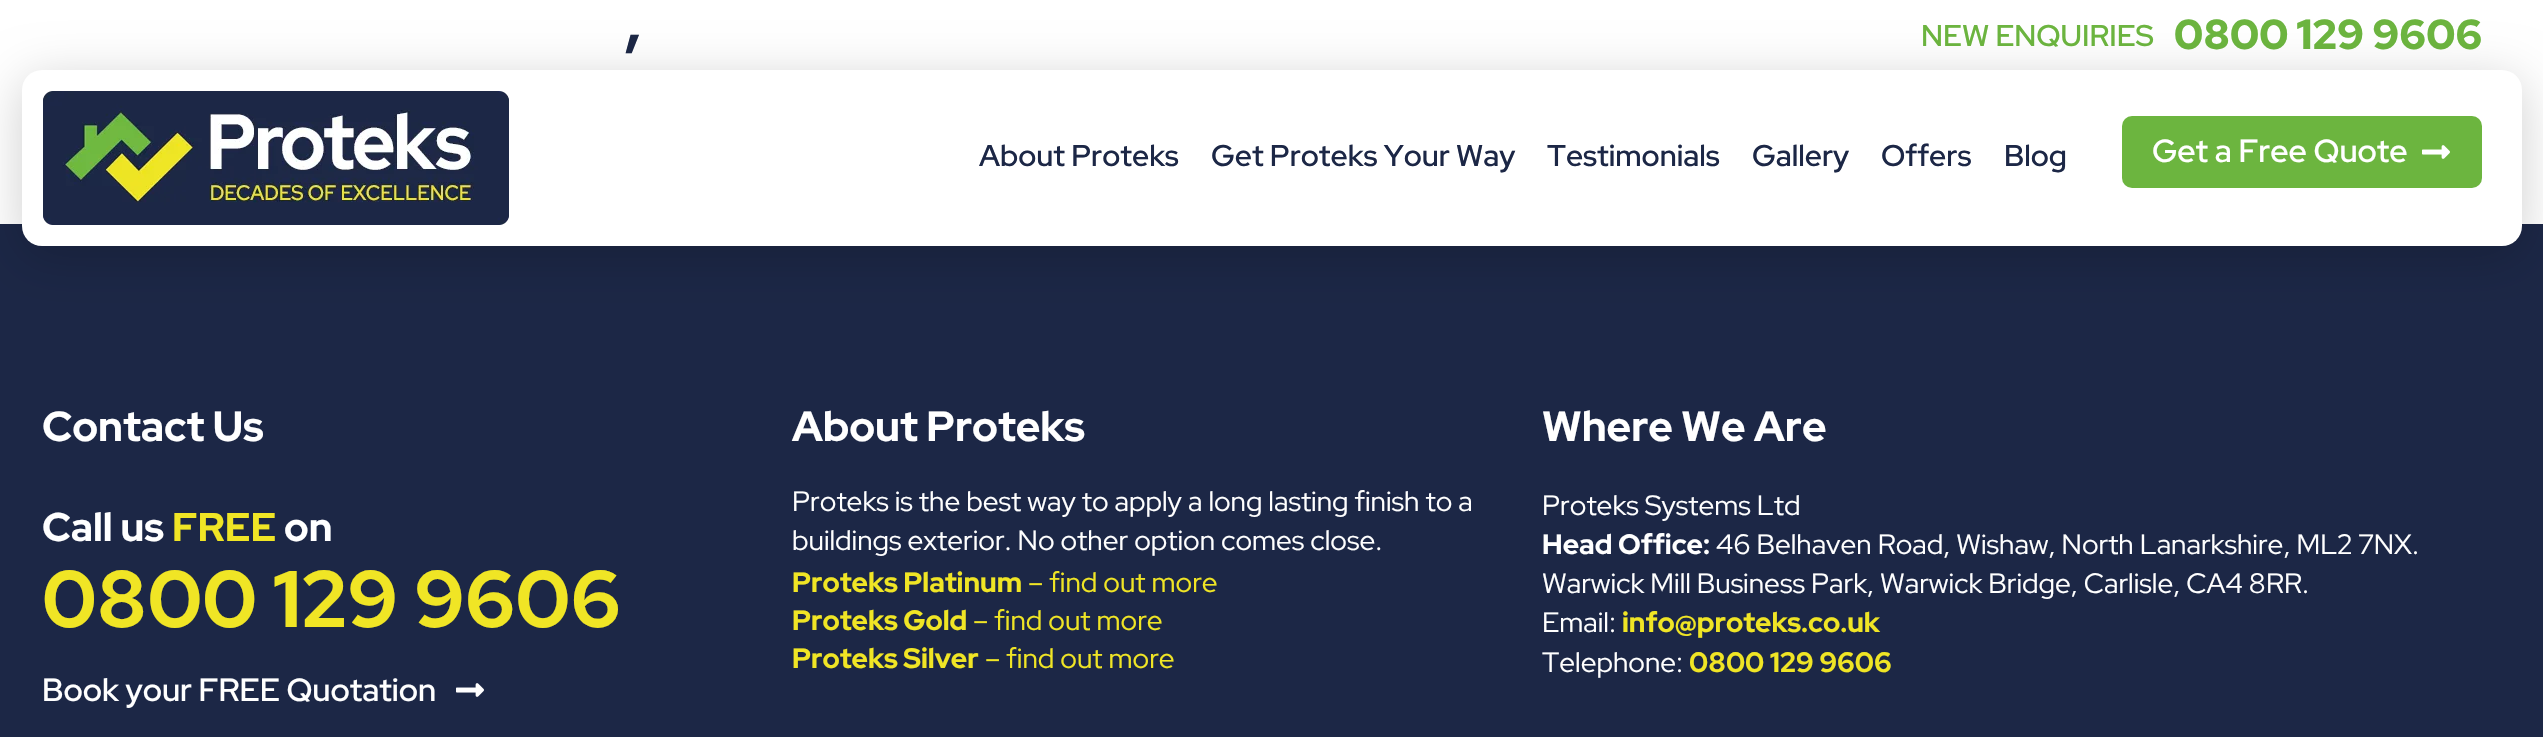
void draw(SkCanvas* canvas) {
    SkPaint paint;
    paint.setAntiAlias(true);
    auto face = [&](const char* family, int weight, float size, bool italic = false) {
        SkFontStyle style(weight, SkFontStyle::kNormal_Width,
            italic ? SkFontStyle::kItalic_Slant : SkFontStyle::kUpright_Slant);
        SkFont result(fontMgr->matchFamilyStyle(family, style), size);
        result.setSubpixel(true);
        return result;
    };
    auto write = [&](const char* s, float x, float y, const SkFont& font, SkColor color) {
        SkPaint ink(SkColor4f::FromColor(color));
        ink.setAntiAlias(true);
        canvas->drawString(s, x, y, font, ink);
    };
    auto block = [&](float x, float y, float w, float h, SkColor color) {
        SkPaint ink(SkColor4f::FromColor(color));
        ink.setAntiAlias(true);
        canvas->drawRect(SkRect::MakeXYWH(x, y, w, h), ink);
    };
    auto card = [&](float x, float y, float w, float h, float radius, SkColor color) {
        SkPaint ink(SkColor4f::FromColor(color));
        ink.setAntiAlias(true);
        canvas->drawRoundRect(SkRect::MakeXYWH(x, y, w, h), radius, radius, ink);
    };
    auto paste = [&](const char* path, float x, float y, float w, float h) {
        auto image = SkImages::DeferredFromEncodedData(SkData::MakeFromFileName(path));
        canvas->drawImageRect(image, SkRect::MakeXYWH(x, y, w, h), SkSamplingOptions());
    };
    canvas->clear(SK_ColorWHITE);
    auto kFont1 = face("Red Hat Display", 500, 80);
    write("’", 622, 93, kFont1, SkColorSetRGB(28, 39, 70));
    auto kFont2 = face("Red Hat Display", 500, 30);
    write("NEW ENQUIRIES", 1921, 46, kFont2, SkColorSetRGB(108, 181, 63));
    auto kFont3 = face("Red Hat Display", 900, 42);
    write("0800 129 9606", 2174, 49, kFont3, SkColorSetRGB(108, 181, 63));
    block(0, 224, 2543, 513, SkColorSetRGB(28, 39, 70));
    paint.setColor(SkColorSetARGB(48, 0, 0, 0));
    paint.setMaskFilter(SkMaskFilter::MakeBlur(kNormal_SkBlurStyle, 25));
    canvas->drawRoundRect(SkRect::MakeXYWH(22, 80, 2500, 176), 20, 20, paint);
    paint.setMaskFilter(nullptr);
    card(22, 70, 2500, 176, 20, SK_ColorWHITE);
    paste("pic1.png", 43, 91, 466, 134);
    write("About Proteks", 979, 166, kFont2, SkColorSetRGB(28, 39, 70));
    write("Get Proteks Your Way", 1211, 166, kFont2, SkColorSetRGB(28, 39, 70));
    write("Testimonials", 1547, 166, kFont2, SkColorSetRGB(28, 39, 70));
    write("Gallery", 1752, 166, kFont2, SkColorSetRGB(28, 39, 70));
    write("Offers", 1881, 166, kFont2, SkColorSetRGB(28, 39, 70));
    write("Blog", 2004, 166, kFont2, SkColorSetRGB(28, 39, 70));
    card(2122, 116, 360, 72, 10, SkColorSetRGB(108, 181, 63));
    auto kFont4 = face("Red Hat Display", 500, 32);
    write("Get a Free Quote", 2152, 162, kFont4, SK_ColorWHITE);
    paste("pic2.png", 2422, 145, 28, 14);
    auto kFont5 = face("Red Hat Display", 700, 42);
    write("Contact Us", 42, 441, kFont5, SK_ColorWHITE);
    auto kFont6 = face("Red Hat Display", 700, 40);
    write("Call us", 42, 541, kFont6, SK_ColorWHITE);
    write("FREE", 172, 541, kFont6, SkColorSetRGB(240, 229, 37));
    write("on", 284, 541, kFont6, SK_ColorWHITE);
    auto kFont7 = face("Red Hat Display", 700, 80);
    write("0800 129 9606", 42, 627, kFont7, SkColorSetRGB(240, 229, 37));
    write("Book your FREE Quotation", 42, 701, kFont4, SK_ColorWHITE);
    paste("pic3.png", 456, 683, 28, 14);
    write("About Proteks", 792, 441, kFont5, SK_ColorWHITE);
    auto kFont8 = face("Red Hat Display", 400, 28);
    write("Proteks is the best way to apply a long lasting finish to a", 792, 511, kFont8, SK_ColorWHITE);
    write("buildings exterior. No other option comes close.", 792, 550, kFont8, SK_ColorWHITE);
    auto kFont9 = face("Red Hat Display", 700, 28);
    write("Proteks Platinum", 792, 592, kFont9, SkColorSetRGB(240, 229, 37));
    write("– find out more", 1028, 592, kFont8, SkColorSetRGB(240, 229, 37));
    write("Proteks Gold", 792, 630, kFont9, SkColorSetRGB(240, 229, 37));
    write("– find out more", 973, 630, kFont8, SkColorSetRGB(240, 229, 37));
    write("Proteks Silver", 792, 668, kFont9, SkColorSetRGB(240, 229, 37));
    write("– find out more", 985, 668, kFont8, SkColorSetRGB(240, 229, 37));
    write("Where We Are", 1542, 441, kFont5, SK_ColorWHITE);
    write("Proteks Systems Ltd", 1542, 515, kFont8, SK_ColorWHITE);
    write("Head Office:", 1542, 554, kFont9, SK_ColorWHITE);
    write("46 Belhaven Road, Wishaw, North Lanarkshire, ML2 7NX.", 1716, 554, kFont8, SK_ColorWHITE);
    write("Warwick Mill Business Park, Warwick Bridge, Carlisle, CA4 8RR.", 1542, 593, kFont8, SK_ColorWHITE);
    write("Email:", 1542, 632, kFont8, SK_ColorWHITE);
    write("info@proteks.co.uk", 1622, 632, kFont9, SkColorSetRGB(240, 229, 37));
    write("Telephone:", 1542, 672, kFont8, SK_ColorWHITE);
    write("0800 129 9606", 1689, 672, kFont9, SkColorSetRGB(240, 229, 37));
}
